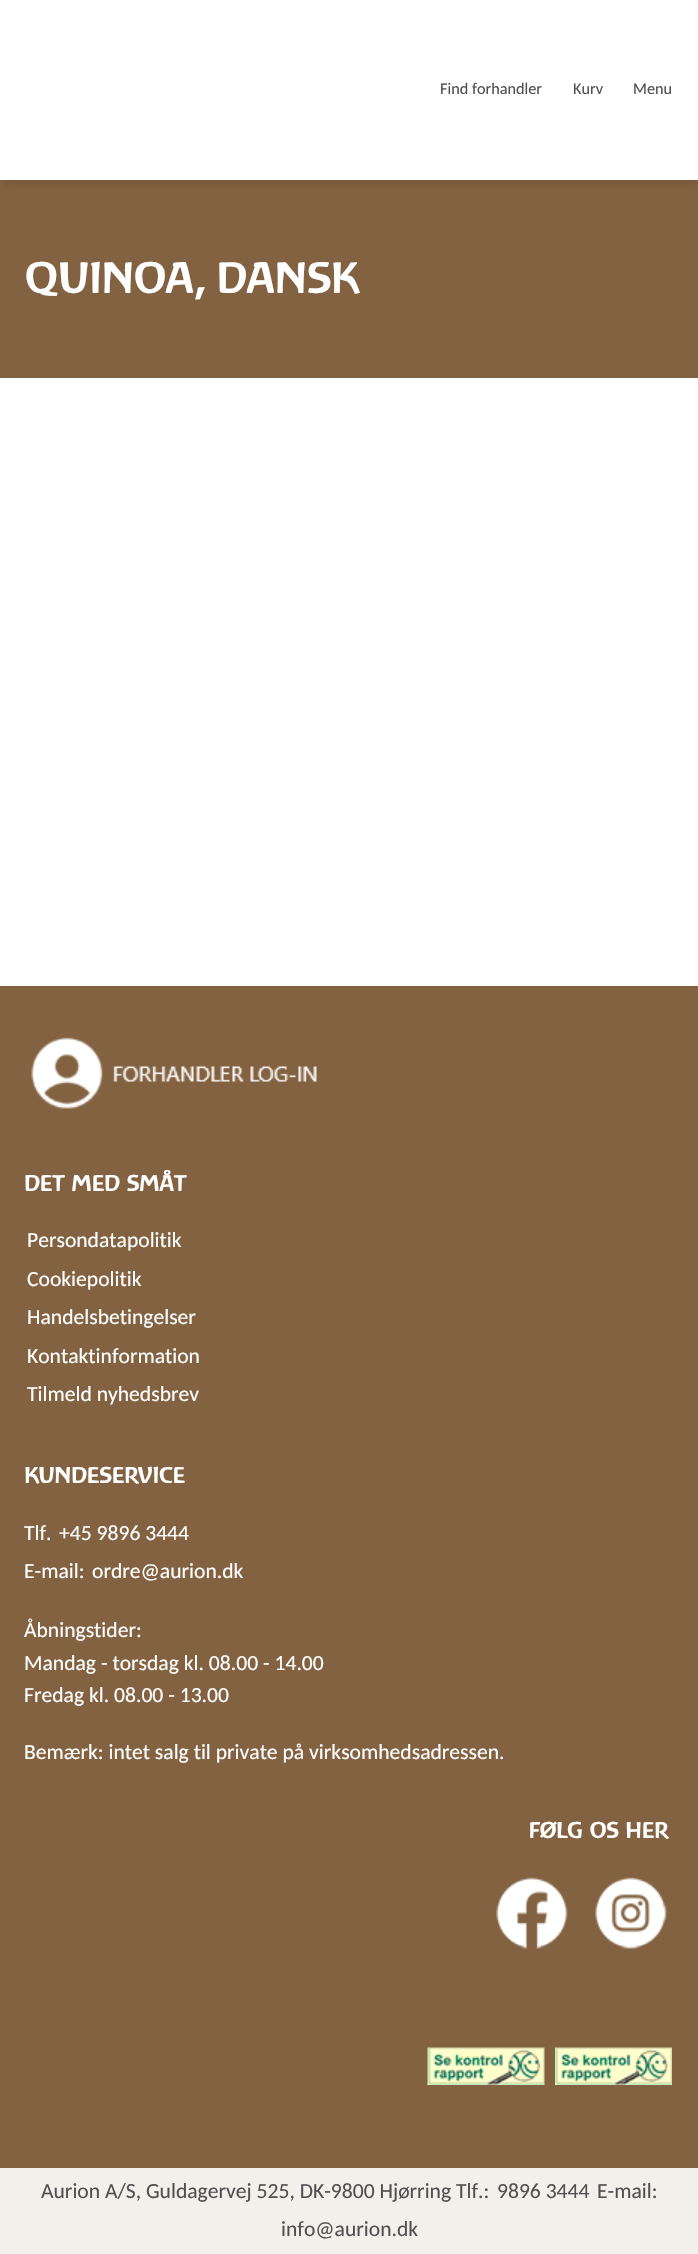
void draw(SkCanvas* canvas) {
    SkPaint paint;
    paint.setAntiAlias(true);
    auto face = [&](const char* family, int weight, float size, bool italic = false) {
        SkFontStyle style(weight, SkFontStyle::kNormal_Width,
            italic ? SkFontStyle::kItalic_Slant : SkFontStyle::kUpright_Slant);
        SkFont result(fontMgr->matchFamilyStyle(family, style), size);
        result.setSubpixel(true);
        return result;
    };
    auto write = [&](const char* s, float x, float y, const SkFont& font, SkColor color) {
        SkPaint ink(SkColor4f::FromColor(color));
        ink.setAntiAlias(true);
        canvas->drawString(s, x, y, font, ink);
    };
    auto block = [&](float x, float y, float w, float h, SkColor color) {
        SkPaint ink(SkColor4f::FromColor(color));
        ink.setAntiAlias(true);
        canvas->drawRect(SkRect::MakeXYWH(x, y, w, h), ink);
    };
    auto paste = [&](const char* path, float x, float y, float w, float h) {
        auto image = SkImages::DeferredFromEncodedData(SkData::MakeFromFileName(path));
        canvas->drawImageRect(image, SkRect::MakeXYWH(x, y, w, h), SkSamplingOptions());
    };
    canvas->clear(SK_ColorWHITE);
    block(0, 180, 698, 198, SkColorSetRGB(131, 98, 65));
    canvas->save();
    canvas->clipRect(SkRect::MakeXYWH(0, 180, 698, 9));
    paint.setColor(SkColorSetARGB(26, 0, 0, 0));
    paint.setMaskFilter(SkMaskFilter::MakeBlur(kNormal_SkBlurStyle, 4.5f));
    canvas->drawRect(SkRect::MakeXYWH(2, 8, 696, 177), paint);
    paint.setMaskFilter(nullptr);
    canvas->restore();
    auto kFont1 = face("Carlito", 400, 16.25f);
    write("Find forhandler", 440, 94, kFont1, SkColorSetRGB(80, 80, 80));
    write("Kurv", 573, 94, kFont1, SkColorSetRGB(80, 80, 80));
    write("Menu", 633, 94, kFont1, SkColorSetRGB(80, 80, 80));
    auto kFont2 = face("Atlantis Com", 700, 41.5f);
    write("QUINOA, DANSK", 24, 293, kFont2, SK_ColorWHITE);
    block(0, 986, 698, 1182, SkColorSetRGB(131, 98, 65));
    paste("pic1.png", 31, 1037, 286, 72);
    auto kFont3 = face("Atlantis Com", 700, 21.6f);
    write("DET MED SMÅT", 24, 1191, kFont3, SK_ColorWHITE);
    auto kFont4 = face("Carlito", 400, 21.6f);
    write("Persondatapolitik", 27, 1247, kFont4, SK_ColorWHITE);
    write("Cookiepolitik", 27, 1286, kFont4, SK_ColorWHITE);
    write("Handelsbetingelser", 27, 1324, kFont4, SK_ColorWHITE);
    write("Kontaktinformation", 27, 1363, kFont4, SK_ColorWHITE);
    write("Tilmeld nyhedsbrev", 27, 1401, kFont4, SK_ColorWHITE);
    write("KUNDESERVICE", 24, 1483, kFont3, SK_ColorWHITE);
    write("Tlf.", 24, 1540, kFont4, SK_ColorWHITE);
    write("+45 9896 3444", 59, 1540, kFont4, SK_ColorWHITE);
    write("E-mail:", 24, 1578, kFont4, SK_ColorWHITE);
    write("ordre@aurion.dk", 92, 1578, kFont4, SK_ColorWHITE);
    write("Åbningstider:", 24, 1637, kFont4, SK_ColorWHITE);
    write("Mandag - torsdag kl. 08.00 - 14.00", 24, 1670, kFont4, SK_ColorWHITE);
    write("Fredag kl. 08.00 - 13.00", 24, 1702, kFont4, SK_ColorWHITE);
    write("Bemærk: intet salg til private på virksomhedsadressen.", 24, 1759, kFont4, SK_ColorWHITE);
    write("FØLG OS HER", 528, 1838, kFont3, SK_ColorWHITE);
    paste("pic2.png", 496, 1877, 72, 72);
    paste("pic3.png", 595, 1877, 72, 72);
    paste("pic4.png", 427, 2047, 118, 38);
    paste("pic5.png", 555, 2047, 117, 38);
    block(0, 2168, 698, 86, SkColorSetRGB(242, 240, 235));
    write("Aurion A/S, Guldagervej 525, DK-9800 Hjørring Tlf.:", 41, 2198, kFont4, SkColorSetRGB(80, 80, 80));
    write("9896 3444", 497, 2198, kFont4, SkColorSetRGB(80, 80, 80));
    write("E-mail:", 597, 2198, kFont4, SkColorSetRGB(80, 80, 80));
    write("info@aurion.dk", 281, 2236, kFont4, SkColorSetRGB(80, 80, 80));
}
